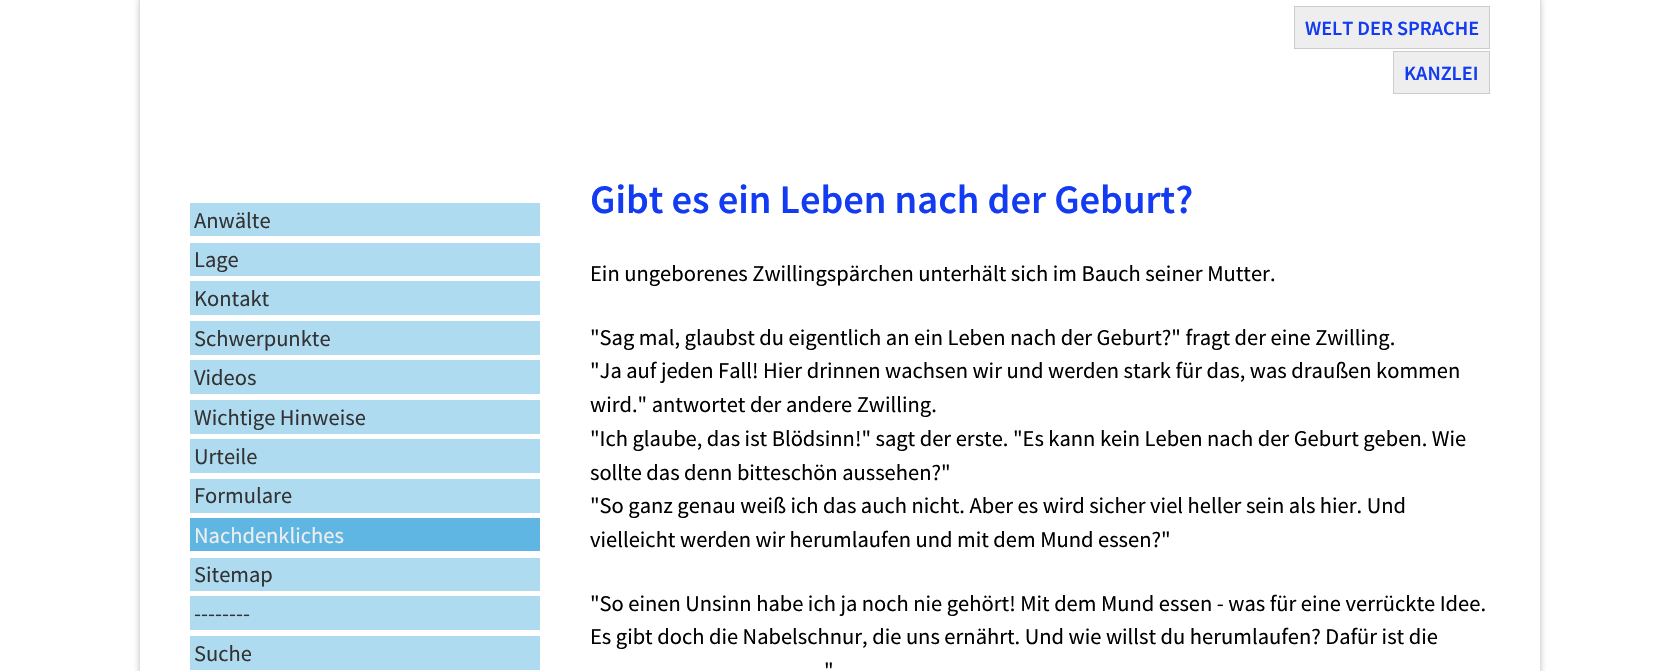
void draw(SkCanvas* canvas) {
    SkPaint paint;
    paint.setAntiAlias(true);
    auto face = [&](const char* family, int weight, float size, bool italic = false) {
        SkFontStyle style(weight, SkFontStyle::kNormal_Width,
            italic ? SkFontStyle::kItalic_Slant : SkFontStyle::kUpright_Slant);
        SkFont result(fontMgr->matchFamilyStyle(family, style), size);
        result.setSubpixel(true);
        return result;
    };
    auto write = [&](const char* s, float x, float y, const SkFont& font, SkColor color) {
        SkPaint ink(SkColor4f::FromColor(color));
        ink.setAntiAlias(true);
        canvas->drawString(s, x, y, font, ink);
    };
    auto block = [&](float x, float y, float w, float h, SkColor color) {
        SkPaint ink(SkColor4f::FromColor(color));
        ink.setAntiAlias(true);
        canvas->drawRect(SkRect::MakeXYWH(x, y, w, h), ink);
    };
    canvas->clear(SK_ColorWHITE);
    canvas->save();
    canvas->clipPath(SkPathBuilder(SkPathFillType::kEvenOdd).moveTo(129, 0).lineTo(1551, 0).lineTo(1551, 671).lineTo(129, 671).close().moveTo(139, 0).lineTo(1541, 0).lineTo(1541, 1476).lineTo(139, 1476).close().detach(), true);
    paint.setColor(SkColorSetARGB(51, 0, 0, 0));
    paint.setMaskFilter(SkMaskFilter::MakeBlur(kNormal_SkBlurStyle, 3));
    canvas->drawRect(SkRect::MakeXYWH(139, 0, 1402, 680), paint);
    paint.setMaskFilter(nullptr);
    canvas->restore();
    block(1540, 0, 1, 671, SkColorSetRGB(222, 222, 222));
    block(139, 0, 1, 671, SkColorSetRGB(222, 222, 222));
    paint.setColor(SkColorSetRGB(238, 238, 238));
    canvas->drawRect(SkRect::MakeXYWH(1294.5f, 6.5f, 195, 42), paint);
    paint.setStyle(SkPaint::kStroke_Style);
    paint.setStrokeWidth(1);
    paint.setColor(SkColorSetRGB(204, 204, 204));
    canvas->drawRect(SkRect::MakeXYWH(1294.5f, 6.5f, 195, 42), paint);
    auto kFont1 = face("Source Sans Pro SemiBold", 600, 20.25f);
    write("WELT DER SPRACHE", 1305, 35, kFont1, SkColorSetRGB(19, 60, 242));
    paint.setStyle(SkPaint::kFill_Style);
    paint.setColor(SkColorSetRGB(238, 238, 238));
    canvas->drawRect(SkRect::MakeXYWH(1393.5f, 51.5f, 96, 42), paint);
    paint.setStyle(SkPaint::kStroke_Style);
    paint.setColor(SkColorSetRGB(204, 204, 204));
    canvas->drawRect(SkRect::MakeXYWH(1393.5f, 51.5f, 96, 42), paint);
    write("KANZLEI", 1404, 80, kFont1, SkColorSetRGB(19, 60, 242));
    block(190, 203, 350, 33, SkColorSetRGB(175, 219, 241));
    auto kFont2 = face("Source Sans Pro", 400, 22.5f);
    write("Anwälte", 194, 228, kFont2, SkColorSetRGB(51, 51, 51));
    block(190, 243, 350, 33, SkColorSetRGB(175, 219, 241));
    write("Lage", 194, 267, kFont2, SkColorSetRGB(51, 51, 51));
    block(190, 281, 350, 34, SkColorSetRGB(175, 219, 241));
    write("Kontakt", 194, 306, kFont2, SkColorSetRGB(51, 51, 51));
    block(190, 321, 350, 34, SkColorSetRGB(175, 219, 241));
    write("Schwerpunkte", 194, 346, kFont2, SkColorSetRGB(51, 51, 51));
    block(190, 360, 350, 34, SkColorSetRGB(175, 219, 241));
    write("Videos", 194, 385, kFont2, SkColorSetRGB(51, 51, 51));
    block(190, 400, 350, 34, SkColorSetRGB(175, 219, 241));
    write("Wichtige Hinweise", 194, 425, kFont2, SkColorSetRGB(51, 51, 51));
    block(190, 439, 350, 34, SkColorSetRGB(175, 219, 241));
    write("Urteile", 194, 464, kFont2, SkColorSetRGB(51, 51, 51));
    block(190, 479, 350, 34, SkColorSetRGB(175, 219, 241));
    write("Formulare", 194, 503, kFont2, SkColorSetRGB(51, 51, 51));
    block(190, 518, 350, 33, SkColorSetRGB(95, 182, 226));
    write("Nachdenkliches", 194, 543, kFont2, SkColorSetRGB(238, 238, 238));
    block(190, 558, 350, 33, SkColorSetRGB(175, 219, 241));
    write("Sitemap", 194, 582, kFont2, SkColorSetRGB(51, 51, 51));
    block(190, 596, 350, 34, SkColorSetRGB(175, 219, 241));
    write("--------", 194, 621, kFont2, SkColorSetRGB(51, 51, 51));
    block(190, 636, 350, 34, SkColorSetRGB(175, 219, 241));
    write("Suche", 194, 661, kFont2, SkColorSetRGB(51, 51, 51));
    auto kFont3 = face("Source Sans Pro SemiBold", 600, 40.5f);
    write("Gibt es ein Leben nach der Geburt?", 590, 213, kFont3, SkColorSetRGB(19, 60, 242));
    write("Ein ungeborenes Zwillingspärchen unterhält sich im Bauch seiner Mutter.", 590, 281, kFont2, SK_ColorBLACK);
    write("\"Sag mal, glaubst du eigentlich an ein Leben nach der Geburt?\" fragt der eine Zwilling.", 590, 345, kFont2, SK_ColorBLACK);
    write("\"Ja auf jeden Fall! Hier drinnen wachsen wir und werden stark für das, was draußen kommen", 590, 378, kFont2, SK_ColorBLACK);
    write("wird.\" antwortet der andere Zwilling.", 590, 412, kFont2, SK_ColorBLACK);
    write("\"Ich glaube, das ist Blödsinn!\" sagt der erste. \"Es kann kein Leben nach der Geburt geben. Wie", 590, 446, kFont2, SK_ColorBLACK);
    write("sollte das denn bitteschön aussehen?\"", 590, 480, kFont2, SK_ColorBLACK);
    write("\"So ganz genau weiß ich das auch nicht. Aber es wird sicher viel heller sein als hier. Und", 590, 513, kFont2, SK_ColorBLACK);
    write("vielleicht werden wir herumlaufen und mit dem Mund essen?\"", 590, 547, kFont2, SK_ColorBLACK);
    write("\"So einen Unsinn habe ich ja noch nie gehört! Mit dem Mund essen - was für eine verrückte Idee.", 590, 611, kFont2, SK_ColorBLACK);
    write("Es gibt doch die Nabelschnur, die uns ernährt. Und wie willst du herumlaufen? Dafür ist die", 590, 644, kFont2, SK_ColorBLACK);
    write("\"", 824, 678, kFont2, SK_ColorBLACK);
}
